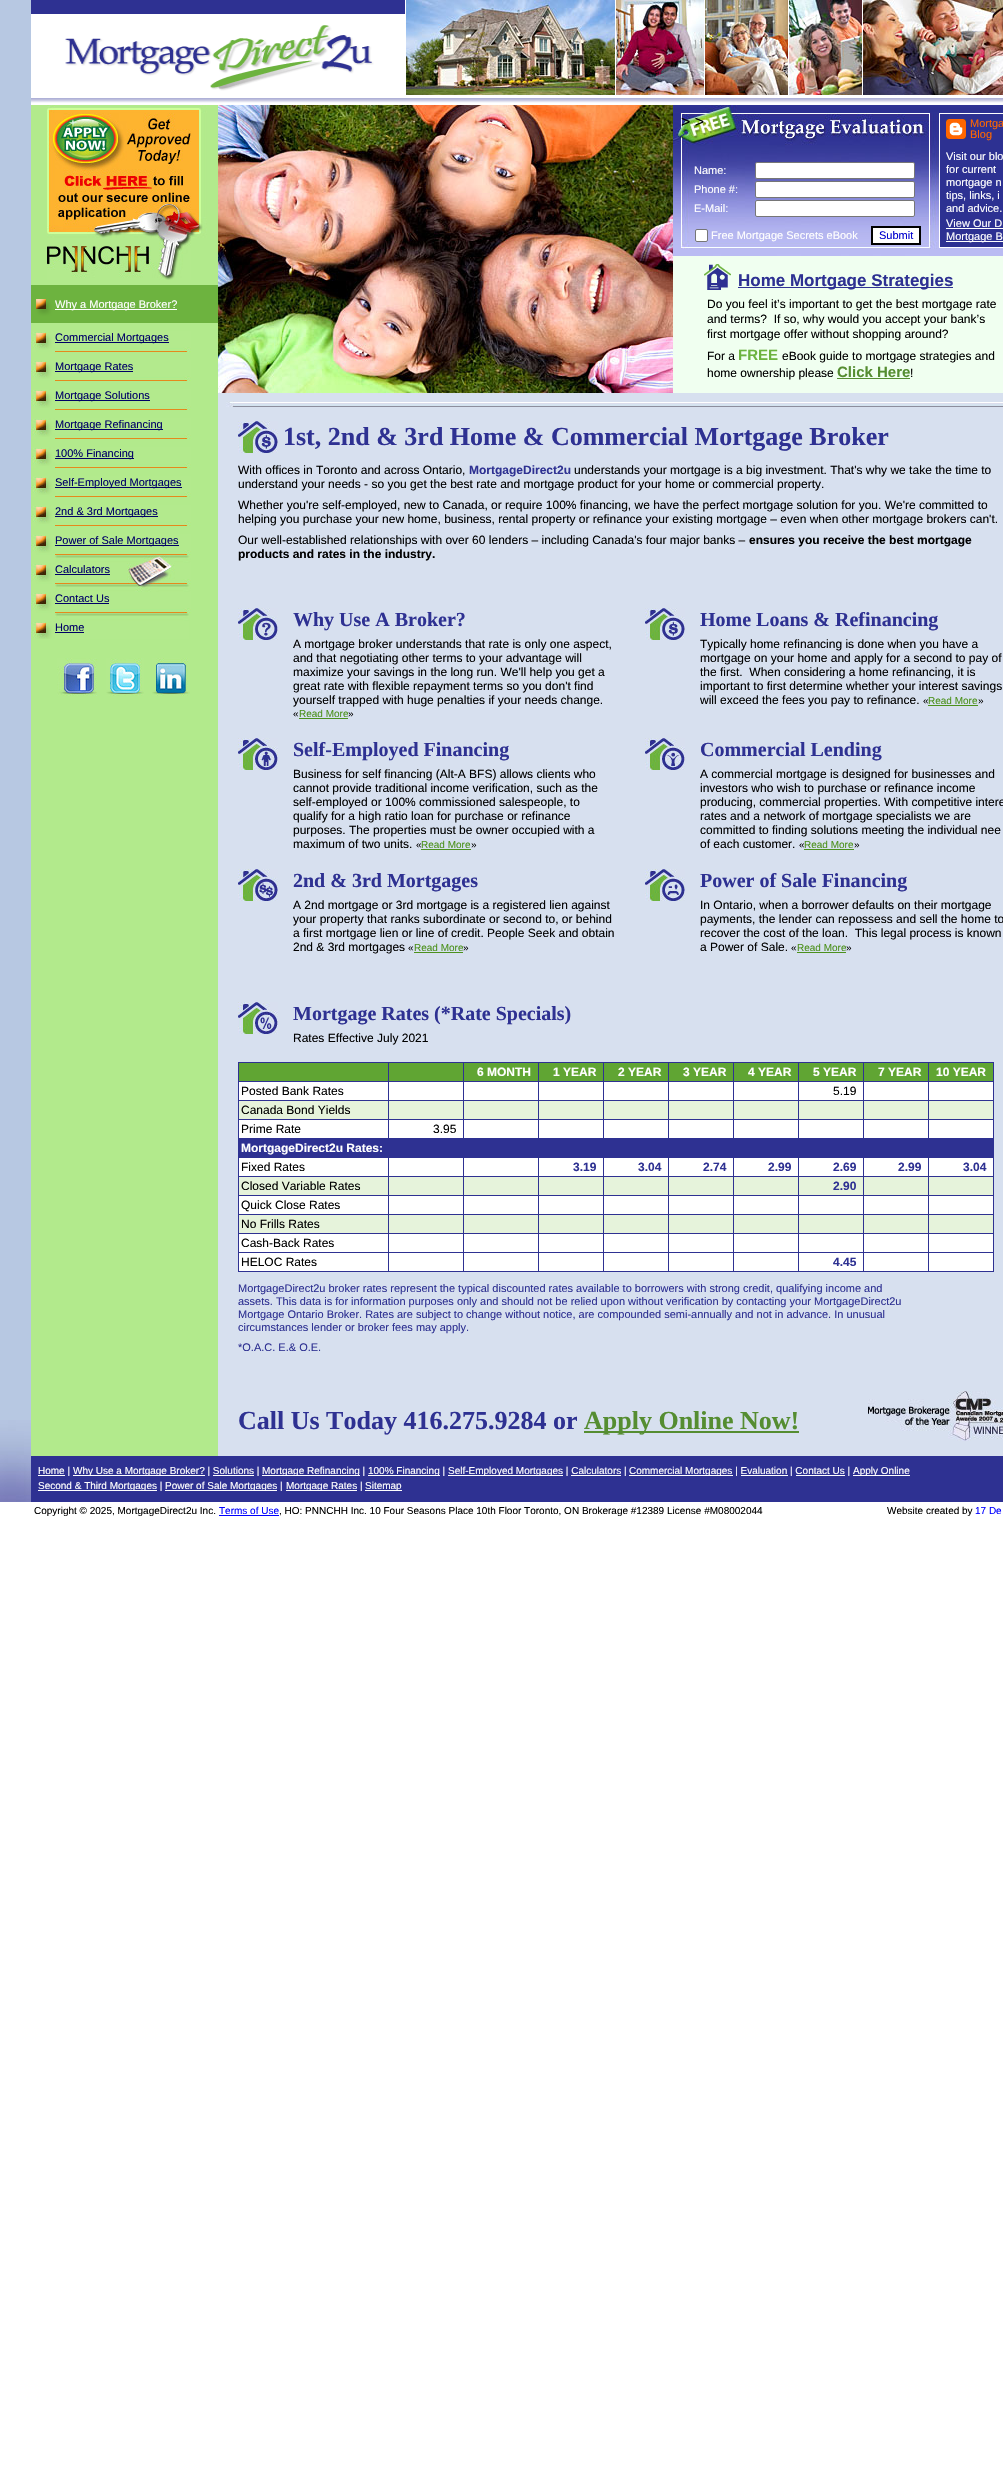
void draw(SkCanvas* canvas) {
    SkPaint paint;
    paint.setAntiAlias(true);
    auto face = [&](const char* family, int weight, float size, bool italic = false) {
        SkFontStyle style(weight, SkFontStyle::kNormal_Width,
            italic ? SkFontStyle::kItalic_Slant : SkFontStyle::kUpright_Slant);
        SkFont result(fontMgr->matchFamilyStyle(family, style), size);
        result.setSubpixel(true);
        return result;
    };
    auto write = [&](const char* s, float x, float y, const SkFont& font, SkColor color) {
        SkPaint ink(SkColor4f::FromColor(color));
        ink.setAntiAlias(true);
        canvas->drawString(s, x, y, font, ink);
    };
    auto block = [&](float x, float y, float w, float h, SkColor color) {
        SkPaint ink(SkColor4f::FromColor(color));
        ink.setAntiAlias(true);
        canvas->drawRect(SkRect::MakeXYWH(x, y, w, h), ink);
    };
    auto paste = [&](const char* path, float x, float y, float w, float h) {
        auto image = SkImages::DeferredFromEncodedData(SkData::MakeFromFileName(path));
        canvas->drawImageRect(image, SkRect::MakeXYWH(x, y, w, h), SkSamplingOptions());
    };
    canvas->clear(SK_ColorWHITE);
    block(0, 0, 31, 1420, SkColorSetRGB(183, 200, 226));
    block(31, 0, 374, 14, SkColorSetRGB(46, 49, 146));
    paste("pic1.png", 65, 25, 309, 66);
    paste("pic2.png", 406, 0, 209, 95);
    paste("pic3.png", 616, 0, 88, 95);
    paste("pic4.png", 705, 0, 83, 95);
    paste("pic5.png", 789, 0, 73, 95);
    paste("pic6.png", 863, 0, 140, 95);
    paste("pic7.png", 31, 98, 972, 5);
    block(31, 105, 187, 1351, SkColorSetRGB(178, 234, 140));
    paste("pic8.png", 47, 105, 160, 133);
    paste("pic9.png", 47, 238, 144, 42);
    paste("pic10.png", 31, 285, 187, 38);
    block(55, 309, 122, 1, SK_ColorWHITE);
    auto kFont1 = face("Liberation Sans", 400, 11);
    write("Why a Mortgage Broker?", 55, 308, kFont1, SK_ColorWHITE);
    paste("pic11.png", 31, 331, 160, 21);
    paste("pic12.png", 31, 331, 16, 17);
    block(55, 342, 114, 1, SkColorSetRGB(0, 0, 102));
    write("Commercial Mortgages", 55, 341, kFont1, SkColorSetRGB(0, 0, 102));
    paste("pic11.png", 31, 360, 160, 21);
    paste("pic12.png", 31, 360, 16, 17);
    block(55, 371, 78, 1, SkColorSetRGB(0, 0, 102));
    write("Mortgage Rates", 55, 370, kFont1, SkColorSetRGB(0, 0, 102));
    paste("pic11.png", 31, 389, 160, 21);
    paste("pic12.png", 31, 389, 16, 17);
    block(55, 400, 95, 1, SkColorSetRGB(0, 0, 102));
    write("Mortgage Solutions", 55, 399, kFont1, SkColorSetRGB(0, 0, 102));
    paste("pic11.png", 31, 418, 160, 21);
    paste("pic12.png", 31, 418, 16, 17);
    block(55, 429, 108, 1, SkColorSetRGB(0, 0, 102));
    write("Mortgage Refinancing", 55, 428, kFont1, SkColorSetRGB(0, 0, 102));
    paste("pic11.png", 31, 447, 160, 21);
    paste("pic12.png", 31, 447, 16, 17);
    block(55, 458, 79, 1, SkColorSetRGB(0, 0, 102));
    write("100% Financing", 55, 457, kFont1, SkColorSetRGB(0, 0, 102));
    paste("pic11.png", 31, 476, 160, 21);
    paste("pic12.png", 31, 476, 16, 17);
    block(55, 487, 127, 1, SkColorSetRGB(0, 0, 102));
    write("Self-Employed Mortgages", 55, 486, kFont1, SkColorSetRGB(0, 0, 102));
    paste("pic11.png", 31, 505, 160, 21);
    paste("pic12.png", 31, 505, 16, 17);
    block(55, 516, 103, 1, SkColorSetRGB(0, 0, 102));
    write("2nd & 3rd Mortgages", 55, 515, kFont1, SkColorSetRGB(0, 0, 102));
    paste("pic11.png", 31, 534, 160, 21);
    paste("pic12.png", 31, 534, 16, 17);
    block(55, 545, 124, 1, SkColorSetRGB(0, 0, 102));
    write("Power of Sale Mortgages", 55, 544, kFont1, SkColorSetRGB(0, 0, 102));
    paste("pic13.png", 31, 555, 160, 29);
    paste("pic12.png", 31, 563, 16, 17);
    write("Calculators", 55, 573, kFont1, SkColorSetRGB(0, 0, 102));
    block(55, 574, 55, 1, SkColorSetRGB(0, 0, 102));
    paste("pic14.png", 31, 584, 160, 29);
    paste("pic12.png", 31, 592, 16, 17);
    write("Contact Us", 55, 602, kFont1, SkColorSetRGB(0, 0, 102));
    block(55, 603, 54, 1, SkColorSetRGB(0, 0, 102));
    paste("pic15.png", 31, 613, 158, 26);
    paste("pic12.png", 31, 621, 16, 17);
    write("Home", 55, 631, kFont1, SkColorSetRGB(0, 0, 102));
    block(55, 632, 29, 1, SkColorSetRGB(0, 0, 102));
    paste("pic16.png", 57, 658, 40, 38);
    paste("pic17.png", 106, 658, 38, 38);
    paste("pic18.png", 152, 658, 38, 38);
    block(218, 393, 785, 1063, SkColorSetRGB(215, 224, 239));
    paste("pic19.png", 218, 105, 455, 288);
    paste("pic20.png", 673, 105, 330, 151);
    auto kFont2 = face("Liberation Sans", 400, 16);
    write("> >", 681, 127, kFont2, SK_ColorBLACK);
    write("Name:", 694, 174, kFont1, SK_ColorWHITE);
    paint.setColor(SK_ColorWHITE);
    canvas->drawRoundRect(SkRect::MakeXYWH(755.5f, 162.5f, 159, 16), 1.5f, 1.5f, paint);
    paint.setStyle(SkPaint::kStroke_Style);
    paint.setStrokeWidth(1);
    paint.setColor(SkColorSetRGB(118, 118, 118));
    canvas->drawRoundRect(SkRect::MakeXYWH(755.5f, 162.5f, 159, 16), 1.5f, 1.5f, paint);
    write("Phone #:", 694, 193, kFont1, SK_ColorWHITE);
    paint.setStyle(SkPaint::kFill_Style);
    paint.setColor(SK_ColorWHITE);
    canvas->drawRoundRect(SkRect::MakeXYWH(755.5f, 181.5f, 159, 16), 1.5f, 1.5f, paint);
    paint.setStyle(SkPaint::kStroke_Style);
    paint.setColor(SkColorSetRGB(118, 118, 118));
    canvas->drawRoundRect(SkRect::MakeXYWH(755.5f, 181.5f, 159, 16), 1.5f, 1.5f, paint);
    write("E-Mail:", 694, 212, kFont1, SK_ColorWHITE);
    paint.setStyle(SkPaint::kFill_Style);
    paint.setColor(SK_ColorWHITE);
    canvas->drawRoundRect(SkRect::MakeXYWH(755.5f, 200.5f, 159, 16), 1.5f, 1.5f, paint);
    paint.setStyle(SkPaint::kStroke_Style);
    paint.setColor(SkColorSetRGB(118, 118, 118));
    canvas->drawRoundRect(SkRect::MakeXYWH(755.5f, 200.5f, 159, 16), 1.5f, 1.5f, paint);
    paint.setStyle(SkPaint::kFill_Style);
    paint.setColor(SK_ColorWHITE);
    canvas->drawRoundRect(SkRect::MakeXYWH(695.5f, 229.5f, 12, 12), 1.5f, 1.5f, paint);
    paint.setStyle(SkPaint::kStroke_Style);
    paint.setColor(SkColorSetRGB(118, 118, 118));
    canvas->drawRoundRect(SkRect::MakeXYWH(695.5f, 229.5f, 12, 12), 1.5f, 1.5f, paint);
    write("Free Mortgage Secrets eBook", 711, 239, kFont1, SK_ColorWHITE);
    paint.setStyle(SkPaint::kFill_Style);
    paint.setColor(SK_ColorWHITE);
    canvas->drawRect(SkRect::MakeXYWH(872, 227, 48, 17), paint);
    paint.setStyle(SkPaint::kStroke_Style);
    paint.setStrokeWidth(2);
    paint.setColor(SK_ColorBLACK);
    canvas->drawRect(SkRect::MakeXYWH(872, 227, 48, 17), paint);
    write("Submit", 879, 239, kFont1, SkColorSetRGB(0, 0, 205));
    block(939, 113, 64, 135, SK_ColorWHITE);
    block(940, 114, 63, 133, SkColorSetRGB(45, 49, 146));
    paste("pic21.png", 946, 119, 20, 20);
    write("Mortga", 970, 127, kFont1, SkColorSetRGB(255, 102, 0));
    write("Blog", 970, 138, kFont1, SkColorSetRGB(255, 102, 0));
    write("Visit our blo", 946, 160, kFont1, SK_ColorWHITE);
    write("for current", 946, 173, kFont1, SK_ColorWHITE);
    write("mortgage n", 946, 186, kFont1, SK_ColorWHITE);
    write("tips, links, i", 946, 199, kFont1, SK_ColorWHITE);
    write("and advice.", 946, 212, kFont1, SK_ColorWHITE);
    write("View Our D", 946, 227, kFont1, SK_ColorWHITE);
    block(946, 228, 57, 1, SK_ColorWHITE);
    block(946, 241, 57, 1, SK_ColorWHITE);
    write("Mortgage B", 946, 240, kFont1, SK_ColorWHITE);
    paste("pic22.png", 673, 256, 330, 137);
    block(738, 287, 215, 1, SkColorSetRGB(46, 49, 146));
    auto kFont3 = face("Liberation Sans", 700, 17);
    write("Home Mortgage Strategies", 738, 286, kFont3, SkColorSetRGB(46, 49, 146));
    auto kFont4 = face("Liberation Sans", 400, 12);
    write("Do you feel it’s important to get the best mortgage rate", 707, 308, kFont4, SK_ColorBLACK);
    write("and terms?  If so, why would you accept your bank’s", 707, 323, kFont4, SK_ColorBLACK);
    write("first mortgage offer without shopping around?", 707, 338, kFont4, SK_ColorBLACK);
    write("For a", 707, 360, kFont4, SK_ColorBLACK);
    auto kFont5 = face("Liberation Sans", 700, 15);
    write("FREE", 738, 360, kFont5, SkColorSetRGB(109, 179, 63));
    write("eBook guide to mortgage strategies and", 782, 360, kFont4, SK_ColorBLACK);
    write("home ownership please", 707, 377, kFont4, SK_ColorBLACK);
    write("Click Here", 837, 377, kFont5, SkColorSetRGB(85, 141, 49));
    block(837, 378, 73, 1, SkColorSetRGB(85, 141, 49));
    write("!", 910, 377, kFont4, SK_ColorBLACK);
    paste("pic23.png", 226, 401, 447, 6);
    paste("pic24.png", 673, 402, 153, 5);
    paste("pic25.png", 826, 402, 177, 5);
    paste("pic26.png", 238, 421, 40, 32);
    auto kFont6 = face("Liberation Serif", 700, 26);
    write("1st, 2nd & 3rd Home & Commercial Mortgage Broker", 283, 445, kFont6, SkColorSetRGB(46, 49, 146));
    write("With offices in Toronto and across Ontario,", 238, 474, kFont4, SK_ColorBLACK);
    auto kFont7 = face("Liberation Sans", 700, 12);
    write("MortgageDirect2u", 469, 474, kFont7, SkColorSetRGB(46, 49, 146));
    write("understands your mortgage is a big investment. That's why we take the time to", 574, 474, kFont4, SK_ColorBLACK);
    write("understand your needs - so you get the best rate and mortgage product for your home or commercial property.", 238, 488, kFont4, SK_ColorBLACK);
    write("Whether you're self-employed, new to Canada, or require 100% financing, we have the perfect mortgage solution for you. We're committed to", 238, 509, kFont4, SK_ColorBLACK);
    write("helping you purchase your new home, business, rental property or refinance your existing mortgage – even when other mortgage brokers can't.", 238, 523, kFont4, SK_ColorBLACK);
    write("Our well-established relationships with over 60 lenders – including Canada's four major banks –", 238, 544, kFont4, SK_ColorBLACK);
    write("ensures you receive the best mortgage", 749, 544, kFont7, SK_ColorBLACK);
    write("products and rates in the industry.", 238, 558, kFont7, SK_ColorBLACK);
    paste("pic27.png", 238, 608, 40, 32);
    auto kFont8 = face("Liberation Serif", 700, 20);
    write("Why Use A Broker?", 293, 626, kFont8, SkColorSetRGB(46, 49, 146));
    write("A mortgage broker understands that rate is only one aspect,", 293, 648, kFont4, SK_ColorBLACK);
    write("and that negotiating other terms to your advantage will", 293, 662, kFont4, SK_ColorBLACK);
    write("maximize your savings in the long run. We'll help you get a", 293, 676, kFont4, SK_ColorBLACK);
    write("great rate with flexible repayment terms so you don't find", 293, 690, kFont4, SK_ColorBLACK);
    write("yourself trapped with huge penalties if your needs change.", 293, 704, kFont4, SK_ColorBLACK);
    auto kFont9 = face("Liberation Sans", 400, 10);
    write("«", 293, 717, kFont9, SK_ColorBLACK);
    block(299, 718, 49, 1, SkColorSetRGB(76, 145, 29));
    write("Read More", 299, 717, kFont9, SkColorSetRGB(76, 145, 29));
    write("»", 348, 717, kFont9, SK_ColorBLACK);
    paste("pic26.png", 645, 608, 40, 32);
    write("Home Loans & Refinancing", 700, 626, kFont8, SkColorSetRGB(46, 49, 146));
    write("Typically home refinancing is done when you have a", 700, 648, kFont4, SK_ColorBLACK);
    write("mortgage on your home and apply for a second to pay of", 700, 662, kFont4, SK_ColorBLACK);
    write("the first.  When considering a home refinancing, it is", 700, 676, kFont4, SK_ColorBLACK);
    write("important to first determine whether your interest savings", 700, 690, kFont4, SK_ColorBLACK);
    write("will exceed the fees you pay to refinance.", 700, 704, kFont4, SK_ColorBLACK);
    write("«", 923, 704, kFont9, SK_ColorBLACK);
    block(928, 705, 50, 1, SkColorSetRGB(76, 145, 29));
    write("Read More", 928, 704, kFont9, SkColorSetRGB(76, 145, 29));
    write("»", 978, 704, kFont9, SK_ColorBLACK);
    paste("pic28.png", 238, 738, 40, 32);
    write("Self-Employed Financing", 293, 756, kFont8, SkColorSetRGB(46, 49, 146));
    write("Business for self financing (Alt-A BFS) allows clients who", 293, 778, kFont4, SK_ColorBLACK);
    write("cannot provide traditional income verification, such as the", 293, 792, kFont4, SK_ColorBLACK);
    write("self-employed or 100% commissioned salespeople, to", 293, 806, kFont4, SK_ColorBLACK);
    write("qualify for a high ratio loan for purchase or refinance", 293, 820, kFont4, SK_ColorBLACK);
    write("purposes. The properties must be owner occupied with a", 293, 834, kFont4, SK_ColorBLACK);
    write("maximum of two units.", 293, 848, kFont4, SK_ColorBLACK);
    write("«", 416, 848, kFont9, SK_ColorBLACK);
    block(421, 849, 50, 1, SkColorSetRGB(76, 145, 29));
    write("Read More", 421, 848, kFont9, SkColorSetRGB(76, 145, 29));
    write("»", 471, 848, kFont9, SK_ColorBLACK);
    paste("pic29.png", 645, 738, 40, 32);
    write("Commercial Lending", 700, 756, kFont8, SkColorSetRGB(46, 49, 146));
    write("A commercial mortgage is designed for businesses and", 700, 778, kFont4, SK_ColorBLACK);
    write("investors who wish to purchase or refinance income", 700, 792, kFont4, SK_ColorBLACK);
    write("producing, commercial properties. With competitive intere", 700, 806, kFont4, SK_ColorBLACK);
    write("rates and a network of mortgage specialists we are", 700, 820, kFont4, SK_ColorBLACK);
    write("committed to finding solutions meeting the individual nee", 700, 834, kFont4, SK_ColorBLACK);
    write("of each customer.", 700, 848, kFont4, SK_ColorBLACK);
    write("«", 799, 848, kFont9, SK_ColorBLACK);
    block(804, 849, 50, 1, SkColorSetRGB(76, 145, 29));
    write("Read More", 804, 848, kFont9, SkColorSetRGB(76, 145, 29));
    write("»", 854, 848, kFont9, SK_ColorBLACK);
    paste("pic30.png", 238, 869, 40, 32);
    write("2nd & 3rd Mortgages", 293, 887, kFont8, SkColorSetRGB(46, 49, 146));
    write("A 2nd mortgage or 3rd mortgage is a registered lien against", 293, 909, kFont4, SK_ColorBLACK);
    write("your property that ranks subordinate or second to, or behind", 293, 923, kFont4, SK_ColorBLACK);
    write("a first mortgage lien or line of credit. People Seek and obtain", 293, 937, kFont4, SK_ColorBLACK);
    write("2nd & 3rd mortgages", 293, 951, kFont4, SK_ColorBLACK);
    write("«", 408, 951, kFont9, SK_ColorBLACK);
    block(414, 952, 49, 1, SkColorSetRGB(76, 145, 29));
    write("Read More", 414, 951, kFont9, SkColorSetRGB(76, 145, 29));
    write("»", 463, 951, kFont9, SK_ColorBLACK);
    paste("pic31.png", 645, 869, 40, 32);
    write("Power of Sale Financing", 700, 887, kFont8, SkColorSetRGB(46, 49, 146));
    write("In Ontario, when a borrower defaults on their mortgage", 700, 909, kFont4, SK_ColorBLACK);
    write("payments, the lender can repossess and sell the home to", 700, 923, kFont4, SK_ColorBLACK);
    write("recover the cost of the loan.  This legal process is known", 700, 937, kFont4, SK_ColorBLACK);
    write("a Power of Sale.", 700, 951, kFont4, SK_ColorBLACK);
    write("«", 791, 951, kFont9, SK_ColorBLACK);
    block(797, 952, 49, 1, SkColorSetRGB(76, 145, 29));
    write("Read More", 797, 951, kFont9, SkColorSetRGB(76, 145, 29));
    write("»", 846, 951, kFont9, SK_ColorBLACK);
    paste("pic32.png", 238, 1002, 40, 32);
    write("Mortgage Rates (*Rate Specials)", 293, 1020, kFont8, SkColorSetRGB(46, 49, 146));
    write("Rates Effective July 2021", 293, 1042, kFont4, SK_ColorBLACK);
    block(238, 1062, 756, 210, SkColorSetRGB(46, 49, 146));
    block(239, 1063, 149, 18, SkColorSetRGB(96, 165, 51));
    block(389, 1063, 74, 18, SkColorSetRGB(96, 165, 51));
    block(464, 1063, 74, 18, SkColorSetRGB(96, 165, 51));
    write("6 MONTH", 477, 1076, kFont7, SK_ColorWHITE);
    block(539, 1063, 64, 18, SkColorSetRGB(96, 165, 51));
    write("1 YEAR", 553, 1076, kFont7, SK_ColorWHITE);
    block(604, 1063, 64, 18, SkColorSetRGB(96, 165, 51));
    write("2 YEAR", 618, 1076, kFont7, SK_ColorWHITE);
    block(669, 1063, 64, 18, SkColorSetRGB(96, 165, 51));
    write("3 YEAR", 683, 1076, kFont7, SK_ColorWHITE);
    block(734, 1063, 64, 18, SkColorSetRGB(96, 165, 51));
    write("4 YEAR", 748, 1076, kFont7, SK_ColorWHITE);
    block(799, 1063, 64, 18, SkColorSetRGB(96, 165, 51));
    write("5 YEAR", 813, 1076, kFont7, SK_ColorWHITE);
    block(864, 1063, 64, 18, SkColorSetRGB(96, 165, 51));
    write("7 YEAR", 878, 1076, kFont7, SK_ColorWHITE);
    block(929, 1063, 64, 18, SkColorSetRGB(96, 165, 51));
    write("10 YEAR", 936, 1076, kFont7, SK_ColorWHITE);
    block(239, 1082, 149, 18, SK_ColorWHITE);
    write("Posted Bank Rates", 241, 1095, kFont4, SK_ColorBLACK);
    block(389, 1082, 74, 18, SK_ColorWHITE);
    block(464, 1082, 74, 18, SK_ColorWHITE);
    block(539, 1082, 64, 18, SK_ColorWHITE);
    block(604, 1082, 64, 18, SK_ColorWHITE);
    block(669, 1082, 64, 18, SK_ColorWHITE);
    block(734, 1082, 64, 18, SK_ColorWHITE);
    block(799, 1082, 64, 18, SK_ColorWHITE);
    write("5.19", 833, 1095, kFont4, SK_ColorBLACK);
    block(864, 1082, 64, 18, SK_ColorWHITE);
    block(929, 1082, 64, 18, SK_ColorWHITE);
    block(239, 1101, 149, 18, SkColorSetRGB(230, 243, 219));
    write("Canada Bond Yields", 241, 1114, kFont4, SK_ColorBLACK);
    block(389, 1101, 74, 18, SkColorSetRGB(230, 243, 219));
    block(464, 1101, 74, 18, SkColorSetRGB(230, 243, 219));
    block(539, 1101, 64, 18, SkColorSetRGB(230, 243, 219));
    block(604, 1101, 64, 18, SkColorSetRGB(230, 243, 219));
    block(669, 1101, 64, 18, SkColorSetRGB(230, 243, 219));
    block(734, 1101, 64, 18, SkColorSetRGB(230, 243, 219));
    block(799, 1101, 64, 18, SkColorSetRGB(230, 243, 219));
    block(864, 1101, 64, 18, SkColorSetRGB(230, 243, 219));
    block(929, 1101, 64, 18, SkColorSetRGB(230, 243, 219));
    block(239, 1120, 149, 18, SK_ColorWHITE);
    write("Prime Rate", 241, 1133, kFont4, SK_ColorBLACK);
    block(389, 1120, 74, 18, SK_ColorWHITE);
    write("3.95", 433, 1133, kFont4, SK_ColorBLACK);
    block(464, 1120, 74, 18, SK_ColorWHITE);
    block(539, 1120, 64, 18, SK_ColorWHITE);
    block(604, 1120, 64, 18, SK_ColorWHITE);
    block(669, 1120, 64, 18, SK_ColorWHITE);
    block(734, 1120, 64, 18, SK_ColorWHITE);
    block(799, 1120, 64, 18, SK_ColorWHITE);
    block(864, 1120, 64, 18, SK_ColorWHITE);
    block(929, 1120, 64, 18, SK_ColorWHITE);
    write("MortgageDirect2u Rates:", 241, 1152, kFont7, SK_ColorWHITE);
    block(239, 1158, 149, 18, SK_ColorWHITE);
    write("Fixed Rates", 241, 1171, kFont4, SK_ColorBLACK);
    block(389, 1158, 74, 18, SK_ColorWHITE);
    block(464, 1158, 74, 18, SK_ColorWHITE);
    block(539, 1158, 64, 18, SK_ColorWHITE);
    write("3.19", 573, 1171, kFont7, SkColorSetRGB(46, 49, 146));
    block(604, 1158, 64, 18, SK_ColorWHITE);
    write("3.04", 638, 1171, kFont7, SkColorSetRGB(46, 49, 146));
    block(669, 1158, 64, 18, SK_ColorWHITE);
    write("2.74", 703, 1171, kFont7, SkColorSetRGB(46, 49, 146));
    block(734, 1158, 64, 18, SK_ColorWHITE);
    write("2.99", 768, 1171, kFont7, SkColorSetRGB(46, 49, 146));
    block(799, 1158, 64, 18, SK_ColorWHITE);
    write("2.69", 833, 1171, kFont7, SkColorSetRGB(46, 49, 146));
    block(864, 1158, 64, 18, SK_ColorWHITE);
    write("2.99", 898, 1171, kFont7, SkColorSetRGB(46, 49, 146));
    block(929, 1158, 64, 18, SK_ColorWHITE);
    write("3.04", 963, 1171, kFont7, SkColorSetRGB(46, 49, 146));
    block(239, 1177, 149, 18, SkColorSetRGB(230, 243, 219));
    write("Closed Variable Rates", 241, 1190, kFont4, SK_ColorBLACK);
    block(389, 1177, 74, 18, SkColorSetRGB(230, 243, 219));
    block(464, 1177, 74, 18, SkColorSetRGB(230, 243, 219));
    block(539, 1177, 64, 18, SkColorSetRGB(230, 243, 219));
    block(604, 1177, 64, 18, SkColorSetRGB(230, 243, 219));
    block(669, 1177, 64, 18, SkColorSetRGB(230, 243, 219));
    block(734, 1177, 64, 18, SkColorSetRGB(230, 243, 219));
    block(799, 1177, 64, 18, SkColorSetRGB(230, 243, 219));
    write("2.90", 833, 1190, kFont7, SkColorSetRGB(46, 49, 146));
    block(864, 1177, 64, 18, SkColorSetRGB(230, 243, 219));
    block(929, 1177, 64, 18, SkColorSetRGB(230, 243, 219));
    block(239, 1196, 149, 18, SK_ColorWHITE);
    write("Quick Close Rates", 241, 1209, kFont4, SK_ColorBLACK);
    block(389, 1196, 74, 18, SK_ColorWHITE);
    block(464, 1196, 74, 18, SK_ColorWHITE);
    block(539, 1196, 64, 18, SK_ColorWHITE);
    block(604, 1196, 64, 18, SK_ColorWHITE);
    block(669, 1196, 64, 18, SK_ColorWHITE);
    block(734, 1196, 64, 18, SK_ColorWHITE);
    block(799, 1196, 64, 18, SK_ColorWHITE);
    block(864, 1196, 64, 18, SK_ColorWHITE);
    block(929, 1196, 64, 18, SK_ColorWHITE);
    block(239, 1215, 149, 18, SkColorSetRGB(230, 243, 219));
    write("No Frills Rates", 241, 1228, kFont4, SK_ColorBLACK);
    block(389, 1215, 74, 18, SkColorSetRGB(230, 243, 219));
    block(464, 1215, 74, 18, SkColorSetRGB(230, 243, 219));
    block(539, 1215, 64, 18, SkColorSetRGB(230, 243, 219));
    block(604, 1215, 64, 18, SkColorSetRGB(230, 243, 219));
    block(669, 1215, 64, 18, SkColorSetRGB(230, 243, 219));
    block(734, 1215, 64, 18, SkColorSetRGB(230, 243, 219));
    block(799, 1215, 64, 18, SkColorSetRGB(230, 243, 219));
    block(864, 1215, 64, 18, SkColorSetRGB(230, 243, 219));
    block(929, 1215, 64, 18, SkColorSetRGB(230, 243, 219));
    block(239, 1234, 149, 18, SK_ColorWHITE);
    write("Cash-Back Rates", 241, 1247, kFont4, SK_ColorBLACK);
    block(389, 1234, 74, 18, SK_ColorWHITE);
    block(464, 1234, 74, 18, SK_ColorWHITE);
    block(539, 1234, 64, 18, SK_ColorWHITE);
    block(604, 1234, 64, 18, SK_ColorWHITE);
    block(669, 1234, 64, 18, SK_ColorWHITE);
    block(734, 1234, 64, 18, SK_ColorWHITE);
    block(799, 1234, 64, 18, SK_ColorWHITE);
    block(864, 1234, 64, 18, SK_ColorWHITE);
    block(929, 1234, 64, 18, SK_ColorWHITE);
    block(239, 1253, 149, 18, SK_ColorWHITE);
    write("HELOC Rates", 241, 1266, kFont4, SK_ColorBLACK);
    block(389, 1253, 74, 18, SK_ColorWHITE);
    block(464, 1253, 74, 18, SK_ColorWHITE);
    block(539, 1253, 64, 18, SK_ColorWHITE);
    block(604, 1253, 64, 18, SK_ColorWHITE);
    block(669, 1253, 64, 18, SK_ColorWHITE);
    block(734, 1253, 64, 18, SK_ColorWHITE);
    block(799, 1253, 64, 18, SK_ColorWHITE);
    write("4.45", 833, 1266, kFont7, SkColorSetRGB(46, 49, 146));
    block(864, 1253, 64, 18, SK_ColorWHITE);
    block(929, 1253, 64, 18, SK_ColorWHITE);
    write("MortgageDirect2u broker rates represent the typical discounted rates available to borrowers with strong credit, qualifying income and", 238, 1292, kFont1, SkColorSetRGB(46, 49, 146));
    write("assets. This data is for information purposes only and should not be relied upon without verification by contacting your MortgageDirect2u", 238, 1305, kFont1, SkColorSetRGB(46, 49, 146));
    write("Mortgage Ontario Broker. Rates are subject to change without notice, are compounded semi-annually and not in advance. In unusual", 238, 1318, kFont1, SkColorSetRGB(46, 49, 146));
    write("circumstances lender or broker fees may apply.", 238, 1331, kFont1, SkColorSetRGB(46, 49, 146));
    write("*O.A.C. E.& O.E.", 238, 1351, kFont1, SkColorSetRGB(46, 49, 146));
    write("Call Us Today 416.275.9284 or", 238, 1429, kFont6, SkColorSetRGB(46, 49, 146));
    block(584, 1431, 215, 2, SkColorSetRGB(85, 141, 49));
    write("Apply Online Now!", 584, 1429, kFont6, SkColorSetRGB(85, 141, 49));
    paste("pic33.png", 868, 1391, 135, 50);
    paste("pic34.png", 0, 1420, 31, 82);
    block(31, 1456, 972, 46, SkColorSetRGB(46, 49, 146));
    block(38, 1475, 27, 1, SK_ColorWHITE);
    write("Home |", 38, 1474, kFont9, SK_ColorWHITE);
    block(73, 1475, 132, 1, SK_ColorWHITE);
    write("Why Use a Mortgage Broker? | Solutions |", 73, 1474, kFont9, SK_ColorWHITE);
    block(262, 1475, 98, 1, SK_ColorWHITE);
    write("Mortgage Refinancing |", 262, 1474, kFont9, SK_ColorWHITE);
    block(368, 1475, 72, 1, SK_ColorWHITE);
    write("100% Financing |", 368, 1474, kFont9, SK_ColorWHITE);
    block(448, 1475, 115, 1, SK_ColorWHITE);
    write("Self-Employed Mortgages | Calculators |", 448, 1474, kFont9, SK_ColorWHITE);
    block(629, 1475, 104, 1, SK_ColorWHITE);
    write("Commercial Mortgages | Evaluation | Contact Us |", 629, 1474, kFont9, SK_ColorWHITE);
    block(853, 1475, 57, 1, SK_ColorWHITE);
    write("Apply Online", 853, 1474, kFont9, SK_ColorWHITE);
    block(213, 1475, 41, 1, SK_ColorWHITE);
    block(571, 1475, 50, 1, SK_ColorWHITE);
    block(741, 1475, 47, 1, SK_ColorWHITE);
    block(796, 1475, 49, 1, SK_ColorWHITE);
    block(38, 1490, 119, 1, SK_ColorWHITE);
    write("Second & Third Mortgages |", 38, 1489, kFont9, SK_ColorWHITE);
    block(165, 1490, 112, 1, SK_ColorWHITE);
    write("Power of Sale Mortgages |", 165, 1489, kFont9, SK_ColorWHITE);
    block(286, 1490, 71, 1, SK_ColorWHITE);
    write("Mortgage Rates |", 286, 1489, kFont9, SK_ColorWHITE);
    block(365, 1490, 37, 1, SK_ColorWHITE);
    write("Sitemap", 365, 1489, kFont9, SK_ColorWHITE);
    write("Copyright © 2025, MortgageDirect2u Inc.", 34, 1514, kFont9, SK_ColorBLACK);
    write("Terms of Use", 219, 1514, kFont9, SkColorSetRGB(0, 0, 255));
    block(219, 1515, 60, 1, SkColorSetRGB(0, 0, 255));
    write(", HO: PNNCHH Inc. 10 Four Seasons Place 10th Floor Toronto, ON Brokerage #12389 License #M08002044", 279, 1514, kFont9, SK_ColorBLACK);
    write("Website created by", 887, 1514, kFont9, SK_ColorBLACK);
    write("17 De", 975, 1514, kFont9, SkColorSetRGB(0, 0, 255));
}
